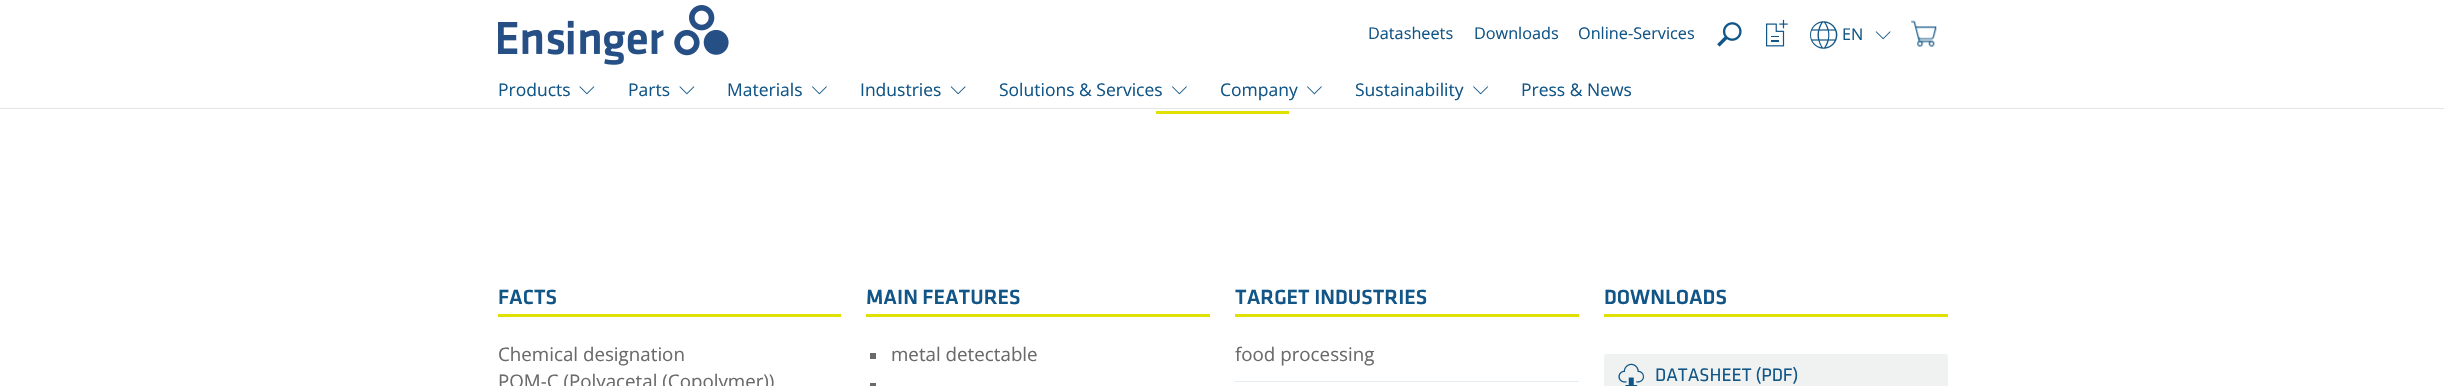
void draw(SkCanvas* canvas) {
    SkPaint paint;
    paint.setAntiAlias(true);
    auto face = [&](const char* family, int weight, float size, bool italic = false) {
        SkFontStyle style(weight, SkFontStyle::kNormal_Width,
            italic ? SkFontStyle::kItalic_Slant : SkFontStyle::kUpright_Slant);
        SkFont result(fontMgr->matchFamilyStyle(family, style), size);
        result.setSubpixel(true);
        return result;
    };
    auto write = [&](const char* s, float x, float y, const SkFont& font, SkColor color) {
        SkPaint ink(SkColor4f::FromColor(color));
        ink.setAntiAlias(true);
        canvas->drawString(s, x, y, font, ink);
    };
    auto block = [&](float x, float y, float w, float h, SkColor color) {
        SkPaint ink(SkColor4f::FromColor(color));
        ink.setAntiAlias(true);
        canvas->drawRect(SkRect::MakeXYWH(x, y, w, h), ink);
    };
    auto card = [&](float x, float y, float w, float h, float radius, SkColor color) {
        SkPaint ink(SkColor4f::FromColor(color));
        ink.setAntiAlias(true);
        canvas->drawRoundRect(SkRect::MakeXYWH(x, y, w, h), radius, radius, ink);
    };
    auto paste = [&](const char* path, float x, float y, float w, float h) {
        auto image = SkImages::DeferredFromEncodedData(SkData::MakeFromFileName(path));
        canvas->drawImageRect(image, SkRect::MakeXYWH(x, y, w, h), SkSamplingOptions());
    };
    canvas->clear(SK_ColorWHITE);
    paste("pic1.png", 498, 5, 231, 60);
    auto kFont1 = face("Open Sans", 400, 16.25f);
    write("Datasheets", 1368, 39, kFont1, SkColorSetRGB(18, 86, 135));
    write("Downloads", 1474, 39, kFont1, SkColorSetRGB(18, 86, 135));
    write("Online-Services", 1578, 39, kFont1, SkColorSetRGB(18, 86, 135));
    paste("pic2.png", 1717, 22, 25, 25);
    paste("pic3.png", 1766, 19, 22, 28);
    paste("pic4.png", 1810, 21, 28, 28);
    write("EN", 1842, 40, kFont1, SkColorSetRGB(18, 86, 135));
    paste("pic5.png", 1875, 31, 16, 9);
    paste("pic6.png", 1911, 20, 26, 27);
    block(0, 108, 2444, 1, SkColorSetRGB(229, 229, 229));
    paste("pic7.png", 579, 86, 16, 9);
    auto kFont2 = face("Open Sans", 400, 17.5f);
    write("Products", 498, 96, kFont2, SkColorSetRGB(18, 86, 135));
    paste("pic7.png", 679, 86, 16, 9);
    write("Parts", 628, 96, kFont2, SkColorSetRGB(18, 86, 135));
    paste("pic8.png", 812, 86, 15, 9);
    write("Materials", 727, 96, kFont2, SkColorSetRGB(18, 86, 135));
    paste("pic5.png", 950, 86, 16, 9);
    write("Industries", 860, 96, kFont2, SkColorSetRGB(18, 86, 135));
    paste("pic8.png", 1172, 86, 15, 9);
    write("Solutions & Services", 999, 96, kFont2, SkColorSetRGB(18, 86, 135));
    paste("pic8.png", 1307, 86, 15, 9);
    write("Company", 1220, 96, kFont2, SkColorSetRGB(18, 86, 135));
    paste("pic9.png", 1473, 86, 15, 9);
    write("Sustainability", 1355, 96, kFont2, SkColorSetRGB(18, 86, 135));
    write("Press & News", 1521, 96, kFont2, SkColorSetRGB(18, 86, 135));
    block(1156, 111, 133, 3, SkColorSetRGB(224, 225, 1));
    block(498, 314, 343, 3, SkColorSetRGB(224, 225, 1));
    auto kFont3 = face("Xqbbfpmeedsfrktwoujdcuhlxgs", 500, 21.25f);
    write("FACTS", 498, 304, kFont3, SkColorSetRGB(18, 86, 135));
    auto kFont4 = face("Open Sans", 400, 18.75f);
    write("Chemical designation", 498, 361, kFont4, SkColorSetRGB(106, 106, 106));
    write("POM-C (Polyacetal (Copolymer))", 498, 388, kFont4, SkColorSetRGB(106, 106, 106));
    block(866, 314, 344, 3, SkColorSetRGB(224, 225, 1));
    write("MAIN FEATURES", 866, 304, kFont3, SkColorSetRGB(18, 86, 135));
    block(870, 353, 6, 6, SkColorSetRGB(106, 106, 106));
    write("metal detectable", 891, 361, kFont4, SkColorSetRGB(106, 106, 106));
    block(870, 383, 6, 3, SkColorSetRGB(106, 106, 106));
    block(1235, 314, 344, 3, SkColorSetRGB(224, 225, 1));
    write("TARGET INDUSTRIES", 1235, 304, kFont3, SkColorSetRGB(18, 86, 135));
    write("food processing", 1235, 361, kFont4, SkColorSetRGB(106, 106, 106));
    block(1235, 381, 344, 1, SkColorSetRGB(230, 237, 242));
    block(1604, 314, 344, 3, SkColorSetRGB(224, 225, 1));
    write("DOWNLOADS", 1604, 304, kFont3, SkColorSetRGB(18, 86, 135));
    card(1604, 354, 344, 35, 2.5f, SkColorSetRGB(240, 242, 242));
    paste("pic10.png", 1618, 363, 26, 23);
    auto kFont5 = face("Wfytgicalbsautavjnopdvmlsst", 400, 18.75f);
    write("DATASHEET (PDF)", 1655, 381, kFont5, SkColorSetRGB(18, 86, 135));
}
